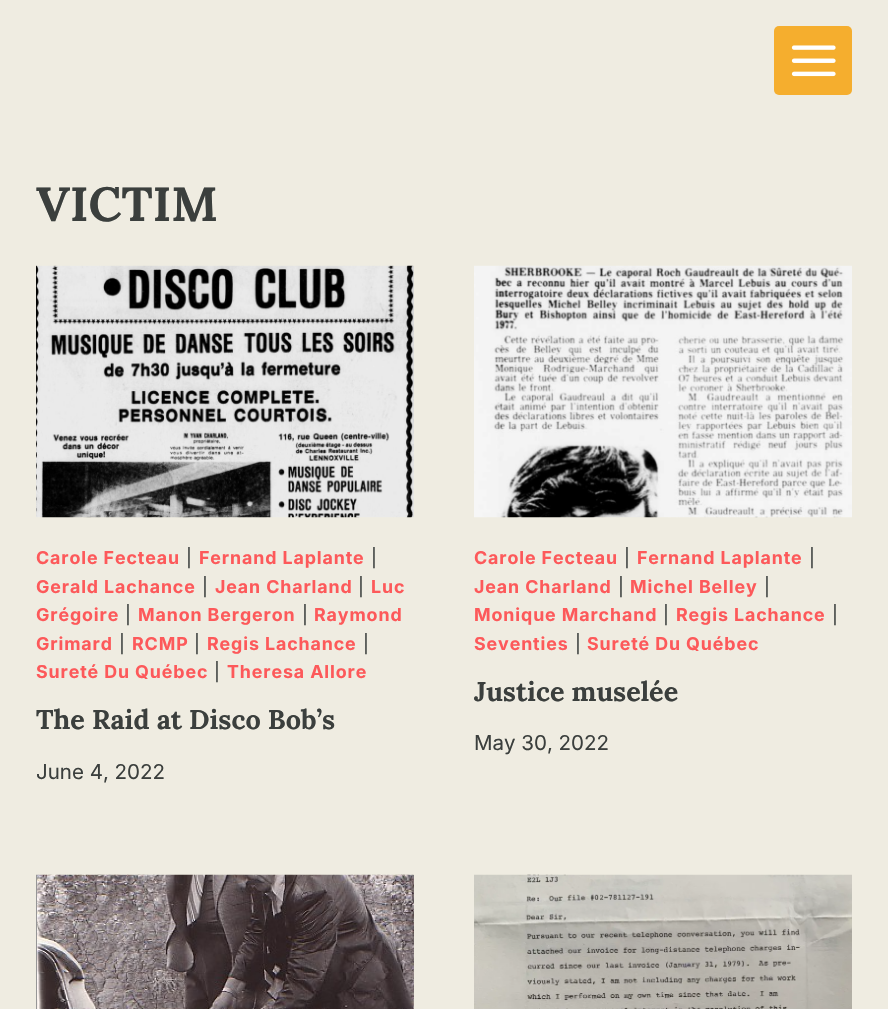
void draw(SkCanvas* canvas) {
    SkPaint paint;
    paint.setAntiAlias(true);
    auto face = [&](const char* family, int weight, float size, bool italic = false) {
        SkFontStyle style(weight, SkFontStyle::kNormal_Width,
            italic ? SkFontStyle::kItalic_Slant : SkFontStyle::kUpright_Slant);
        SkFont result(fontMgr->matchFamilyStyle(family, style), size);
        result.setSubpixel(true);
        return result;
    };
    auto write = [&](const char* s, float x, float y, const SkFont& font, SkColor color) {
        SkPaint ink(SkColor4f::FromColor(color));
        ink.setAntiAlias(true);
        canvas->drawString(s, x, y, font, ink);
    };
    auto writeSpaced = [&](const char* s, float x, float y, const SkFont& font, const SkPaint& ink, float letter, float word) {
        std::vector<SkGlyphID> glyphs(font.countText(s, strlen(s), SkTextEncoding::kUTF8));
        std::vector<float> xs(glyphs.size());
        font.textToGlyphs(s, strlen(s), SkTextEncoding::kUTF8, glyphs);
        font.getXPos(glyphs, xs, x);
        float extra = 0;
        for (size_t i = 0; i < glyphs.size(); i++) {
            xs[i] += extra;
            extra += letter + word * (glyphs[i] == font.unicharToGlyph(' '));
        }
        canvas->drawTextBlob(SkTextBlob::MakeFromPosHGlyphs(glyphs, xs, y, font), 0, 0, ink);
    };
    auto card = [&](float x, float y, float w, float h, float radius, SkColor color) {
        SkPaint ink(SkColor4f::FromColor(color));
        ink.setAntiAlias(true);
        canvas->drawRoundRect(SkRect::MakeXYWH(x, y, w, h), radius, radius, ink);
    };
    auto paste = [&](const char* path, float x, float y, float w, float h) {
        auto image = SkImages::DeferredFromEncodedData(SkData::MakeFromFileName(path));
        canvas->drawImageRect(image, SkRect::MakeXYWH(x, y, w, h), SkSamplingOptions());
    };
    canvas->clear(SkColorSetRGB(239, 236, 225));
    card(774, 26, 78, 69, 5, SkColorSetRGB(245, 174, 46));
    paste("pic1.png", 791, 45, 45, 32);
    auto kFont1 = face("Lora", 700, 48);
    write("VICTIM", 36, 221, kFont1, SkColorSetRGB(59, 63, 61));
    paste("pic2.png", 36, 265, 378, 253);
    auto kFont2 = face("Inter", 700, 17.8f);
    paint.setColor(SkColorSetRGB(253, 89, 90));
    writeSpaced("Carole Fecteau", 36, 564, kFont2, paint, 0.9f, 0);
    auto kFont3 = face("Inter", 400, 17.8f);
    paint.setColor(SkColorSetRGB(59, 63, 61));
    writeSpaced("|", 186, 564, kFont3, paint, 0.9f, 0);
    paint.setColor(SkColorSetRGB(253, 89, 90));
    writeSpaced("Fernand Laplante", 199, 564, kFont2, paint, 0.9f, 0);
    paint.setColor(SkColorSetRGB(59, 63, 61));
    writeSpaced("|", 371, 564, kFont3, paint, 0.9f, 0);
    paint.setColor(SkColorSetRGB(253, 89, 90));
    writeSpaced("Gerald Lachance", 36, 593, kFont2, paint, 0.9f, 0);
    paint.setColor(SkColorSetRGB(59, 63, 61));
    writeSpaced("|", 202, 593, kFont3, paint, 0.9f, 0);
    paint.setColor(SkColorSetRGB(253, 89, 90));
    writeSpaced("Jean Charland", 215, 593, kFont2, paint, 0.9f, 0);
    paint.setColor(SkColorSetRGB(59, 63, 61));
    writeSpaced("|", 358, 593, kFont3, paint, 0.9f, 0);
    paint.setColor(SkColorSetRGB(253, 89, 90));
    writeSpaced("Luc", 371, 593, kFont2, paint, 0.9f, 0);
    writeSpaced("Grégoire", 36, 621, kFont2, paint, 0.9f, 0);
    paint.setColor(SkColorSetRGB(59, 63, 61));
    writeSpaced("|", 125, 621, kFont3, paint, 0.9f, 0);
    paint.setColor(SkColorSetRGB(253, 89, 90));
    writeSpaced("Manon Bergeron", 138, 621, kFont2, paint, 0.9f, 0);
    paint.setColor(SkColorSetRGB(59, 63, 61));
    writeSpaced("|", 302, 621, kFont3, paint, 0.9f, 0);
    paint.setColor(SkColorSetRGB(253, 89, 90));
    writeSpaced("Raymond", 314, 621, kFont2, paint, 0.9f, 0);
    writeSpaced("Grimard", 36, 650, kFont2, paint, 0.9f, 0);
    paint.setColor(SkColorSetRGB(59, 63, 61));
    writeSpaced("|", 119, 650, kFont3, paint, 0.9f, 0);
    paint.setColor(SkColorSetRGB(253, 89, 90));
    writeSpaced("RCMP", 132, 650, kFont2, paint, 0.9f, 0);
    paint.setColor(SkColorSetRGB(59, 63, 61));
    writeSpaced("|", 194, 650, kFont3, paint, 0.9f, 0);
    paint.setColor(SkColorSetRGB(253, 89, 90));
    writeSpaced("Regis Lachance", 207, 650, kFont2, paint, 0.9f, 0);
    paint.setColor(SkColorSetRGB(59, 63, 61));
    writeSpaced("|", 363, 650, kFont3, paint, 0.9f, 0);
    paint.setColor(SkColorSetRGB(253, 89, 90));
    writeSpaced("Sureté Du Québec", 36, 678, kFont2, paint, 0.9f, 0);
    paint.setColor(SkColorSetRGB(59, 63, 61));
    writeSpaced("|", 214, 678, kFont3, paint, 0.9f, 0);
    paint.setColor(SkColorSetRGB(253, 89, 90));
    writeSpaced("Theresa Allore", 227, 678, kFont2, paint, 0.9f, 0);
    auto kFont4 = face("Lora", 700, 27);
    write("The Raid at Disco Bob’s", 36, 729, kFont4, SkColorSetRGB(59, 63, 61));
    auto kFont5 = face("Inter", 400, 20.5f);
    write("June 4, 2022", 36, 779, kFont5, SkColorSetRGB(59, 63, 61));
    paste("pic3.png", 474, 265, 378, 253);
    writeSpaced("Carole Fecteau", 474, 564, kFont2, paint, 0.9f, 0);
    paint.setColor(SkColorSetRGB(59, 63, 61));
    writeSpaced("|", 624, 564, kFont3, paint, 0.9f, 0);
    paint.setColor(SkColorSetRGB(253, 89, 90));
    writeSpaced("Fernand Laplante", 637, 564, kFont2, paint, 0.9f, 0);
    paint.setColor(SkColorSetRGB(59, 63, 61));
    writeSpaced("|", 809, 564, kFont3, paint, 0.9f, 0);
    paint.setColor(SkColorSetRGB(253, 89, 90));
    writeSpaced("Jean Charland", 474, 593, kFont2, paint, 0.9f, 0);
    paint.setColor(SkColorSetRGB(59, 63, 61));
    writeSpaced("|", 618, 593, kFont3, paint, 0.9f, 0);
    paint.setColor(SkColorSetRGB(253, 89, 90));
    writeSpaced("Michel Belley", 630, 593, kFont2, paint, 0.9f, 0);
    paint.setColor(SkColorSetRGB(59, 63, 61));
    writeSpaced("|", 764, 593, kFont3, paint, 0.9f, 0);
    paint.setColor(SkColorSetRGB(253, 89, 90));
    writeSpaced("Monique Marchand", 474, 621, kFont2, paint, 0.9f, 0);
    paint.setColor(SkColorSetRGB(59, 63, 61));
    writeSpaced("|", 663, 621, kFont3, paint, 0.9f, 0);
    paint.setColor(SkColorSetRGB(253, 89, 90));
    writeSpaced("Regis Lachance", 676, 621, kFont2, paint, 0.9f, 0);
    paint.setColor(SkColorSetRGB(59, 63, 61));
    writeSpaced("|", 832, 621, kFont3, paint, 0.9f, 0);
    paint.setColor(SkColorSetRGB(253, 89, 90));
    writeSpaced("Seventies", 474, 650, kFont2, paint, 0.9f, 0);
    paint.setColor(SkColorSetRGB(59, 63, 61));
    writeSpaced("|", 575, 650, kFont3, paint, 0.9f, 0);
    paint.setColor(SkColorSetRGB(253, 89, 90));
    writeSpaced("Sureté Du Québec", 587, 650, kFont2, paint, 0.9f, 0);
    write("Justice muselée", 474, 701, kFont4, SkColorSetRGB(59, 63, 61));
    write("May 30, 2022", 474, 750, kFont5, SkColorSetRGB(59, 63, 61));
    paste("pic4.png", 36, 874, 378, 135);
    paste("pic5.png", 474, 874, 378, 135);
}
